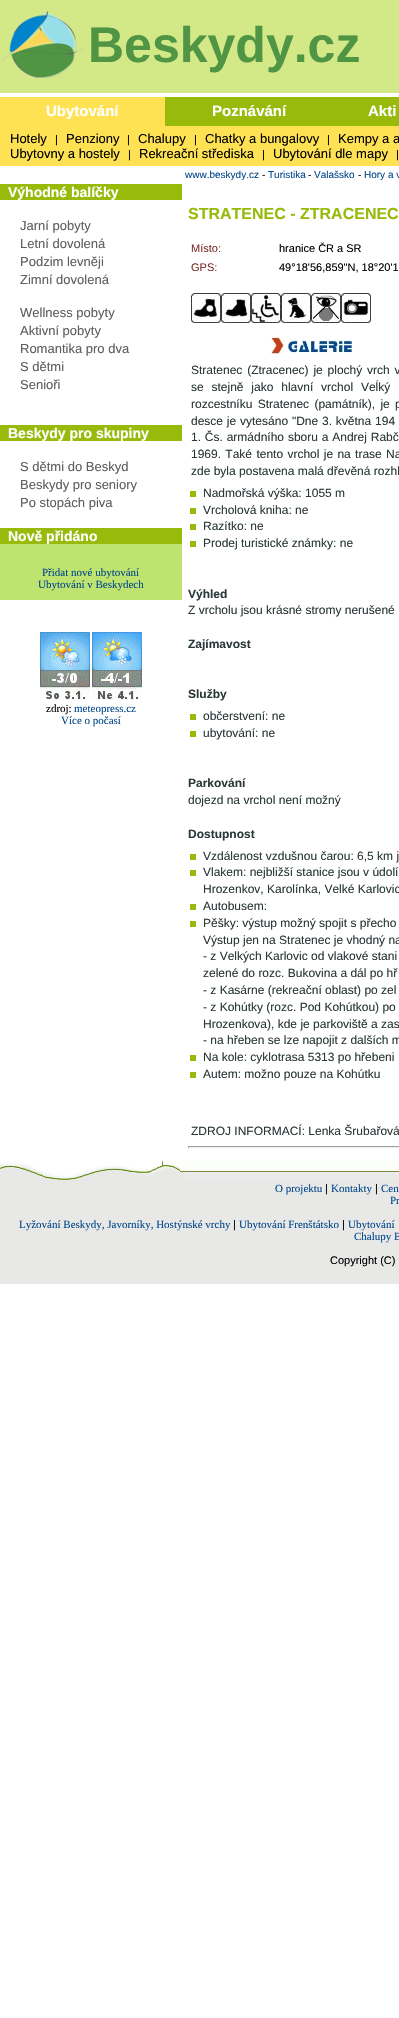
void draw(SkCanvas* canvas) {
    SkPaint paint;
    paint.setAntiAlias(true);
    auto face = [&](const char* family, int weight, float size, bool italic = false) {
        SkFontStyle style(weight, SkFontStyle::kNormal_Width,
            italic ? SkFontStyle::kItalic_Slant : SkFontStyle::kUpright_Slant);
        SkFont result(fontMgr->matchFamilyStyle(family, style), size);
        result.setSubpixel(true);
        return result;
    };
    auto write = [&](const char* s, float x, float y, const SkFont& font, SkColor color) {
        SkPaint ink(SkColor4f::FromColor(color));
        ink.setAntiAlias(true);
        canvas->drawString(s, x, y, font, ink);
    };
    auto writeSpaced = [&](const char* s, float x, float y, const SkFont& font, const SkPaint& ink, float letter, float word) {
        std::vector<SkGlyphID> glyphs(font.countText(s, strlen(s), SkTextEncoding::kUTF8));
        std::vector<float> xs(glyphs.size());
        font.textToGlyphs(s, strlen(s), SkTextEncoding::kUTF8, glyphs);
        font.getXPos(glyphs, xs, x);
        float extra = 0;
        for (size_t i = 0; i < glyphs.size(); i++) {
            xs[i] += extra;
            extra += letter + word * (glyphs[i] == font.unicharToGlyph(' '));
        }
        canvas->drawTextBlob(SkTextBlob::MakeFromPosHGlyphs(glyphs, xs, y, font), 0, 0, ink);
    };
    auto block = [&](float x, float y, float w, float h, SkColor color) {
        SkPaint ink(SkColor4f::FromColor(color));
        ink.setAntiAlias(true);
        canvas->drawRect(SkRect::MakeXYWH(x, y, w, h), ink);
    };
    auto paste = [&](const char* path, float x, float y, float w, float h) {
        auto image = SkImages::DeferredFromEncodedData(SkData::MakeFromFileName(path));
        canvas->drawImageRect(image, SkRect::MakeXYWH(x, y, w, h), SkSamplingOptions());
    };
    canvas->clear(SK_ColorWHITE);
    block(0, 0, 399, 93, SkColorSetRGB(211, 233, 135));
    paste("pic1.png", 1, 11, 84, 68);
    auto kFont1 = face("Liberation Sans", 700, 50);
    write("Beskydy.cz", 88, 62, kFont1, SkColorSetRGB(80, 149, 68));
    block(0, 97, 165, 29, SkColorSetRGB(254, 226, 83));
    auto kFont2 = face("Liberation Sans", 700, 15);
    write("Ubytování", 46, 116, kFont2, SK_ColorWHITE);
    block(165, 97, 234, 29, SkColorSetRGB(151, 186, 11));
    write("Poznávání", 212, 116, kFont2, SK_ColorWHITE);
    write("Akti", 368, 116, kFont2, SK_ColorWHITE);
    block(0, 126, 399, 40, SkColorSetRGB(254, 226, 83));
    auto kFont3 = face("Liberation Sans", 400, 13);
    write("Hotely", 10, 143, kFont3, SK_ColorBLACK);
    auto kFont4 = face("Liberation Sans", 400, 11);
    write("|", 55, 143, kFont4, SK_ColorBLACK);
    write("Penziony", 66, 143, kFont3, SK_ColorBLACK);
    write("|", 127, 143, kFont4, SK_ColorBLACK);
    write("Chalupy", 138, 143, kFont3, SK_ColorBLACK);
    write("|", 194, 143, kFont4, SK_ColorBLACK);
    write("Chatky a bungalovy", 205, 143, kFont3, SK_ColorBLACK);
    write("|", 327, 143, kFont4, SK_ColorBLACK);
    write("Kempy a a", 338, 143, kFont3, SK_ColorBLACK);
    write("Ubytovny a hostely", 10, 158, kFont3, SK_ColorBLACK);
    write("|", 128, 158, kFont4, SK_ColorBLACK);
    write("Rekreační střediska", 139, 158, kFont3, SK_ColorBLACK);
    write("|", 262, 158, kFont4, SK_ColorBLACK);
    write("Ubytování dle mapy", 273, 158, kFont3, SK_ColorBLACK);
    write("|", 396, 158, kFont4, SK_ColorBLACK);
    block(0, 184, 182, 16, SkColorSetRGB(151, 186, 11));
    auto kFont5 = face("Liberation Sans", 700, 14);
    write("Výhodné balíčky", 8, 197, kFont5, SK_ColorWHITE);
    write("Jarní pobyty", 20, 230, kFont3, SkColorSetRGB(96, 93, 92));
    write("Letní dovolená", 20, 248, kFont3, SkColorSetRGB(96, 93, 92));
    write("Podzim levněji", 20, 266, kFont3, SkColorSetRGB(96, 93, 92));
    write("Zimní dovolená", 20, 284, kFont3, SkColorSetRGB(96, 93, 92));
    write("Wellness pobyty", 20, 317, kFont3, SkColorSetRGB(96, 93, 92));
    write("Aktivní pobyty", 20, 335, kFont3, SkColorSetRGB(96, 93, 92));
    write("Romantika pro dva", 20, 353, kFont3, SkColorSetRGB(96, 93, 92));
    write("S dětmi", 20, 371, kFont3, SkColorSetRGB(96, 93, 92));
    write("Senioři", 20, 389, kFont3, SkColorSetRGB(96, 93, 92));
    block(0, 425, 182, 16, SkColorSetRGB(151, 186, 11));
    write("Beskydy pro skupiny", 8, 438, kFont5, SK_ColorWHITE);
    write("S dětmi do Beskyd", 20, 471, kFont3, SkColorSetRGB(96, 93, 92));
    write("Beskydy pro seniory", 20, 489, kFont3, SkColorSetRGB(96, 93, 92));
    write("Po stopách piva", 20, 507, kFont3, SkColorSetRGB(96, 93, 92));
    block(0, 528, 182, 16, SkColorSetRGB(151, 186, 11));
    write("Nově přidáno", 8, 541, kFont5, SK_ColorWHITE);
    block(0, 544, 182, 56, SkColorSetRGB(190, 227, 110));
    auto kFont6 = face("Liberation Serif", 400, 11);
    write("Přidat nové ubytování", 42, 576, kFont6, SkColorSetRGB(4, 73, 140));
    write("Ubytování v Beskydech", 38, 588, kFont6, SkColorSetRGB(4, 73, 140));
    paste("pic2.png", 40, 632, 50, 68);
    paste("pic3.png", 92, 632, 50, 68);
    write("zdroj:", 46, 712, kFont6, SK_ColorBLACK);
    write("meteopress.cz", 74, 712, kFont6, SkColorSetRGB(4, 73, 140));
    write("Více o počasí", 61, 724, kFont6, SkColorSetRGB(4, 73, 140));
    auto kFont7 = face("Liberation Sans", 400, 10);
    write("www.beskydy.cz", 185, 178, kFont7, SkColorSetRGB(4, 73, 140));
    write("-", 262, 178, kFont7, SK_ColorBLACK);
    write("Turistika", 268, 178, kFont7, SkColorSetRGB(4, 73, 140));
    write("-", 308, 178, kFont7, SK_ColorBLACK);
    write("Valašsko", 314, 178, kFont7, SkColorSetRGB(4, 73, 140));
    write("-", 358, 178, kFont7, SK_ColorBLACK);
    write("Hory a v", 364, 178, kFont7, SkColorSetRGB(4, 73, 140));
    auto kFont8 = face("Liberation Sans", 700, 16);
    write("STRATENEC - ZTRACENEC", 188, 219, kFont8, SkColorSetRGB(151, 186, 11));
    write("Místo:", 191, 252, kFont4, SkColorSetRGB(128, 49, 46));
    write("hranice ČR a SR", 279, 252, kFont4, SK_ColorBLACK);
    write("GPS:", 191, 271, kFont4, SkColorSetRGB(128, 49, 46));
    write("49°18'56,859\"N, 18°20'1", 279, 271, kFont4, SK_ColorBLACK);
    paste("pic4.png", 191, 293, 30, 30);
    paste("pic5.png", 221, 293, 30, 30);
    paste("pic6.png", 251, 293, 30, 30);
    paste("pic7.png", 281, 293, 30, 30);
    paste("pic8.png", 311, 293, 30, 30);
    paste("pic9.png", 341, 293, 30, 30);
    paste("pic10.png", 271, 337, 82, 17);
    auto kFont9 = face("Liberation Sans", 400, 12);
    paint.setColor(SkColorSetRGB(43, 56, 56));
    writeSpaced("Stratenec (Ztracenec) je plochý vrch v", 191, 374, kFont9, paint, 0, 1.5f);
    writeSpaced("se stejně jako hlavní vrchol Veĺký", 191, 391, kFont9, paint, 0, 4.5f);
    writeSpaced("rozcestníku Stratenec (památník), je p", 191, 408, kFont9, paint, 0, 2);
    writeSpaced("desce je vytesáno \"Dne 3. května 194", 191, 425, kFont9, paint, 0, 0.5f);
    writeSpaced("1. Čs. armádního sboru a Andrej Rabč", 191, 441, kFont9, paint, 0, 0.5f);
    writeSpaced("1969. Také tento vrchol je na trase Na", 191, 458, kFont9, paint, 0, 1);
    write("zde byla postavena malá dřevěná rozhl", 191, 475, kFont9, SkColorSetRGB(43, 56, 56));
    block(190, 491, 6, 6, SkColorSetRGB(152, 186, 11));
    write("Nadmořská výška: 1055 m", 203, 497, kFont9, SkColorSetRGB(43, 56, 56));
    block(190, 508, 6, 6, SkColorSetRGB(152, 186, 11));
    write("Vrcholová kniha: ne", 203, 514, kFont9, SkColorSetRGB(43, 56, 56));
    block(190, 524, 6, 6, SkColorSetRGB(152, 186, 11));
    write("Razítko: ne", 203, 530, kFont9, SkColorSetRGB(43, 56, 56));
    block(190, 541, 6, 6, SkColorSetRGB(152, 186, 11));
    write("Prodej turistické známky: ne", 203, 547, kFont9, SkColorSetRGB(43, 56, 56));
    auto kFont10 = face("Liberation Sans", 700, 12);
    write("Výhled", 188, 598, kFont10, SkColorSetRGB(43, 56, 56));
    write("Z vrcholu jsou krásné stromy nerušené", 188, 614, kFont9, SkColorSetRGB(43, 56, 56));
    write("Zajímavost", 188, 648, kFont10, SkColorSetRGB(43, 56, 56));
    write("Služby", 188, 698, kFont10, SkColorSetRGB(43, 56, 56));
    block(190, 714, 6, 6, SkColorSetRGB(152, 186, 11));
    write("občerstvení: ne", 203, 720, kFont9, SkColorSetRGB(43, 56, 56));
    block(190, 731, 6, 6, SkColorSetRGB(152, 186, 11));
    write("ubytování: ne", 203, 737, kFont9, SkColorSetRGB(43, 56, 56));
    write("Parkování", 188, 787, kFont10, SkColorSetRGB(43, 56, 56));
    write("dojezd na vrchol není možný", 188, 804, kFont9, SkColorSetRGB(43, 56, 56));
    write("Dostupnost", 188, 838, kFont10, SkColorSetRGB(43, 56, 56));
    block(190, 854, 6, 6, SkColorSetRGB(152, 186, 11));
    write("Vzdálenost vzdušnou čarou: 6,5 km j", 203, 860, kFont9, SkColorSetRGB(43, 56, 56));
    block(190, 870, 6, 6, SkColorSetRGB(152, 186, 11));
    write("Vlakem: nejbližší stanice jsou v údolí", 203, 876, kFont9, SkColorSetRGB(43, 56, 56));
    write("Hrozenkov, Karolínka, Velké Karlovic", 203, 893, kFont9, SkColorSetRGB(43, 56, 56));
    block(190, 904, 6, 6, SkColorSetRGB(152, 186, 11));
    write("Autobusem:", 203, 910, kFont9, SkColorSetRGB(43, 56, 56));
    block(190, 921, 6, 6, SkColorSetRGB(152, 186, 11));
    write("Pěšky: výstup možný spojit s přecho", 203, 927, kFont9, SkColorSetRGB(43, 56, 56));
    write("Výstup jen na Stratenec je vhodný na", 203, 944, kFont9, SkColorSetRGB(43, 56, 56));
    write("- z Velkých Karlovic od vlakové stani", 203, 960, kFont9, SkColorSetRGB(43, 56, 56));
    write("zelené do rozc. Bukovina a dál po hř", 203, 977, kFont9, SkColorSetRGB(43, 56, 56));
    write("- z Kasárne (rekreační oblast) po zel", 203, 994, kFont9, SkColorSetRGB(43, 56, 56));
    write("- z Kohútky (rozc. Pod Kohútkou) po", 203, 1011, kFont9, SkColorSetRGB(43, 56, 56));
    write("Hrozenkova), kde je parkoviště a zas", 203, 1028, kFont9, SkColorSetRGB(43, 56, 56));
    write("- na hřeben se lze napojit z dalších m", 203, 1044, kFont9, SkColorSetRGB(43, 56, 56));
    block(190, 1055, 6, 6, SkColorSetRGB(152, 186, 11));
    write("Na kole: cyklotrasa 5313 po hřebeni", 203, 1061, kFont9, SkColorSetRGB(43, 56, 56));
    block(190, 1072, 6, 6, SkColorSetRGB(152, 186, 11));
    write("Autem: možno pouze na Kohútku", 203, 1078, kFont9, SkColorSetRGB(43, 56, 56));
    write("ZDROJ INFORMACÍ: Lenka Šrubařová", 191, 1135, kFont9, SkColorSetRGB(43, 56, 56));
    block(188, 1146, 211, 1, SkColorSetRGB(159, 159, 159));
    block(188, 1147, 211, 1, SkColorSetRGB(238, 238, 238));
    block(188, 1146, 1, 2, SkColorSetRGB(159, 159, 159));
    block(0, 1179, 399, 105, SkColorSetRGB(232, 232, 231));
    paste("pic11.png", 0, 1160, 183, 20);
    paste("pic12.png", 183, 1160, 216, 19);
    write("O projektu", 275, 1192, kFont6, SkColorSetRGB(4, 73, 140));
    write("|", 325, 1192, kFont4, SK_ColorBLACK);
    write("Kontakty", 331, 1192, kFont6, SkColorSetRGB(4, 73, 140));
    write("|", 375, 1192, kFont4, SK_ColorBLACK);
    write("Cen", 381, 1192, kFont6, SkColorSetRGB(4, 73, 140));
    write("Pr", 390, 1204, kFont6, SkColorSetRGB(4, 73, 140));
    write("Lyžování Beskydy, Javorníky, Hostýnské vrchy", 19, 1228, kFont6, SkColorSetRGB(4, 73, 140));
    write("|", 233, 1228, kFont4, SK_ColorBLACK);
    write("Ubytování Frenštátsko", 239, 1228, kFont6, SkColorSetRGB(4, 73, 140));
    write("|", 342, 1228, kFont4, SK_ColorBLACK);
    write("Ubytování", 348, 1228, kFont6, SkColorSetRGB(4, 73, 140));
    write("Chalupy B", 354, 1240, kFont6, SkColorSetRGB(4, 73, 140));
    write("Copyright (C)", 330, 1264, kFont4, SK_ColorBLACK);
}
